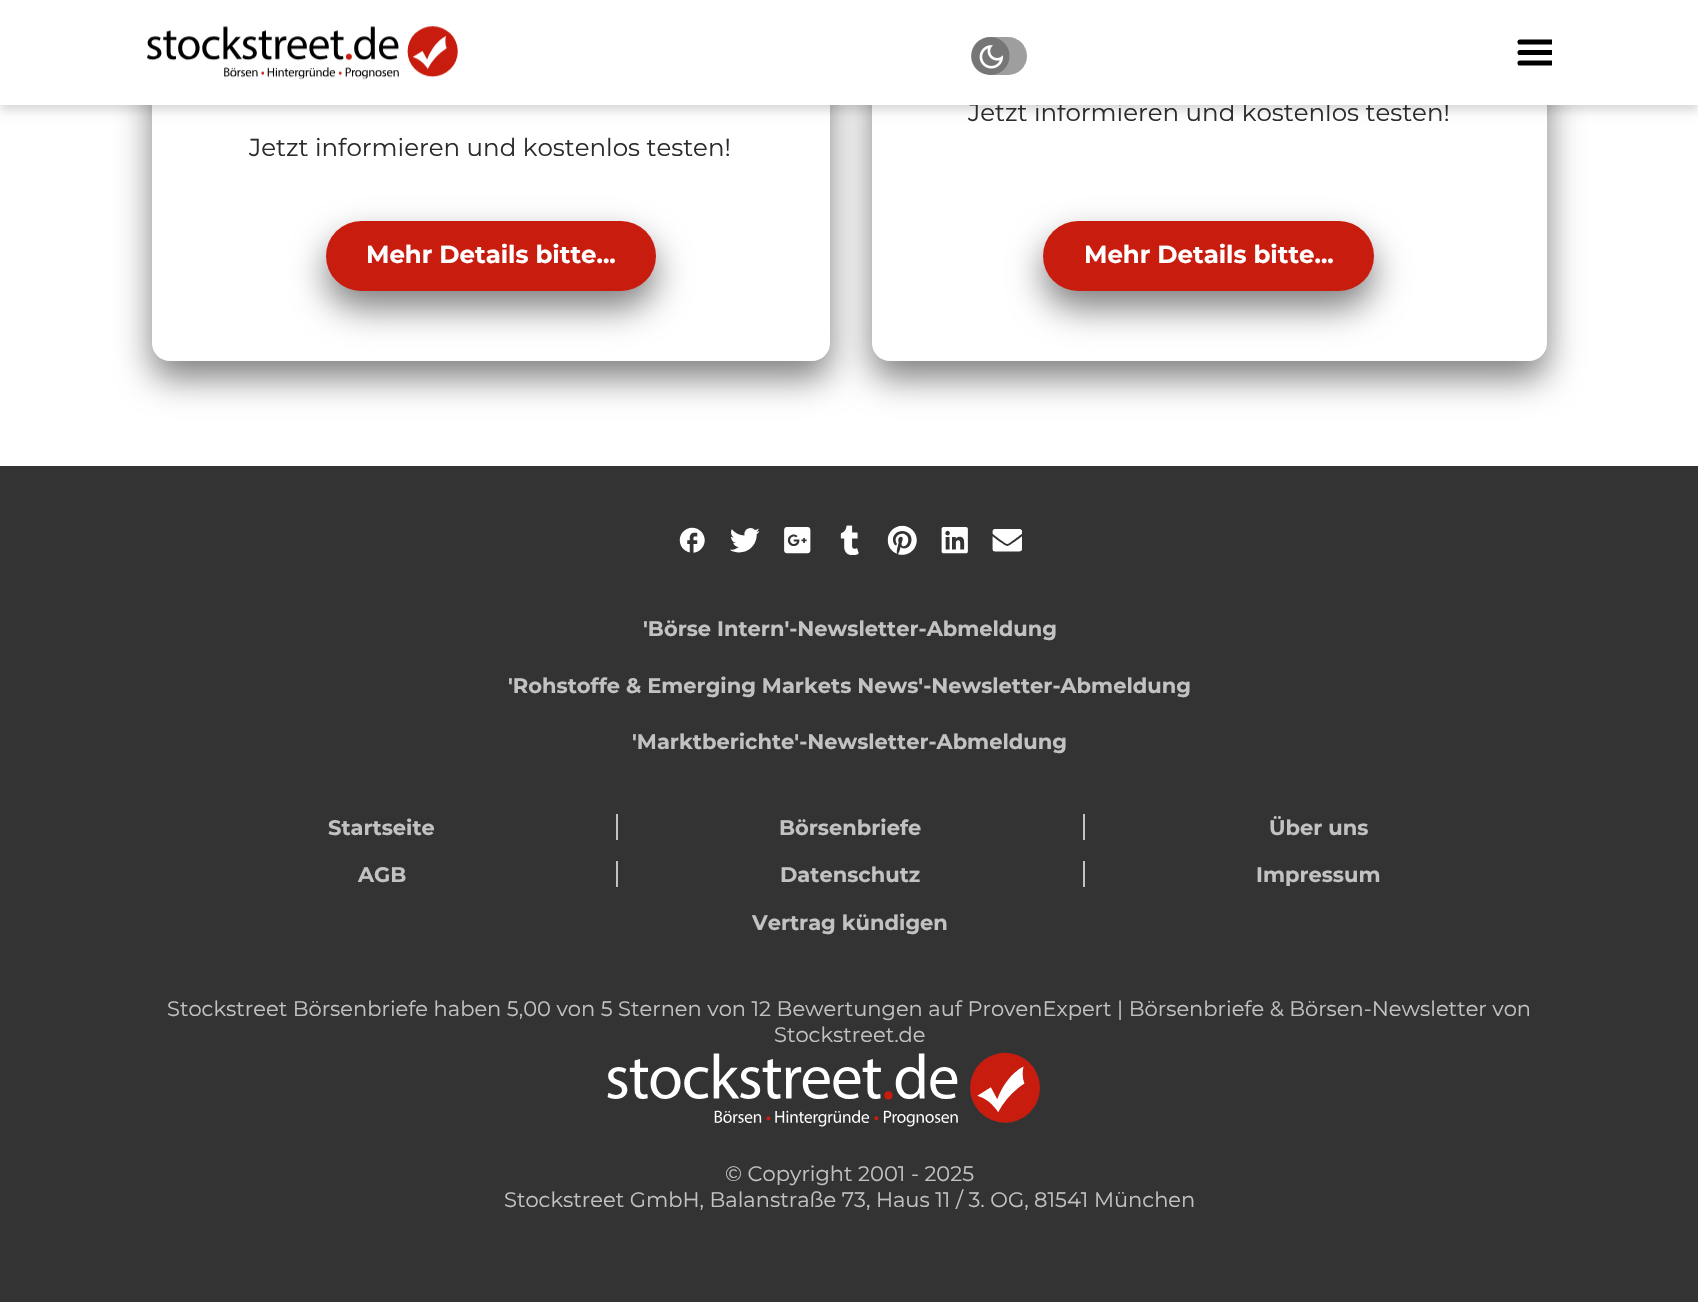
void draw(SkCanvas* canvas) {
    SkPaint paint;
    paint.setAntiAlias(true);
    auto face = [&](const char* family, int weight, float size, bool italic = false) {
        SkFontStyle style(weight, SkFontStyle::kNormal_Width,
            italic ? SkFontStyle::kItalic_Slant : SkFontStyle::kUpright_Slant);
        SkFont result(fontMgr->matchFamilyStyle(family, style), size);
        result.setSubpixel(true);
        return result;
    };
    auto write = [&](const char* s, float x, float y, const SkFont& font, SkColor color) {
        SkPaint ink(SkColor4f::FromColor(color));
        ink.setAntiAlias(true);
        canvas->drawString(s, x, y, font, ink);
    };
    auto block = [&](float x, float y, float w, float h, SkColor color) {
        SkPaint ink(SkColor4f::FromColor(color));
        ink.setAntiAlias(true);
        canvas->drawRect(SkRect::MakeXYWH(x, y, w, h), ink);
    };
    auto card = [&](float x, float y, float w, float h, float radius, SkColor color) {
        SkPaint ink(SkColor4f::FromColor(color));
        ink.setAntiAlias(true);
        canvas->drawRoundRect(SkRect::MakeXYWH(x, y, w, h), radius, radius, ink);
    };
    auto paste = [&](const char* path, float x, float y, float w, float h) {
        auto image = SkImages::DeferredFromEncodedData(SkData::MakeFromFileName(path));
        canvas->drawImageRect(image, SkRect::MakeXYWH(x, y, w, h), SkSamplingOptions());
    };
    canvas->clear(SK_ColorWHITE);
    paint.setColor(SkColorSetARGB(41, 0, 0, 0));
    paint.setMaskFilter(SkMaskFilter::MakeBlur(kNormal_SkBlurStyle, 5));
    canvas->drawRect(SkRect::MakeXYWH(0, 5, 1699, 105), paint);
    paint.setMaskFilter(nullptr);
    canvas->save();
    canvas->clipPath(SkPathBuilder(SkPathFillType::kEvenOdd).moveTo(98, 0).lineTo(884, 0).lineTo(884, 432).lineTo(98, 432).close().moveTo(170, -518).lineTo(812, -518).cubicTo(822, -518, 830, -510, 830, -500).lineTo(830, 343).cubicTo(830, 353, 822, 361, 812, 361).lineTo(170, 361).cubicTo(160, 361, 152, 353, 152, 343).lineTo(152, -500).cubicTo(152, -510, 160, -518, 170, -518).close().detach(), true);
    paint.setColor(SkColorSetARGB(128, 0, 0, 0));
    paint.setMaskFilter(SkMaskFilter::MakeBlur(kNormal_SkBlurStyle, 17.5f));
    canvas->drawRoundRect(SkRect::MakeXYWH(152, -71, 678, 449), 18, 18, paint);
    paint.setMaskFilter(nullptr);
    canvas->restore();
    canvas->save();
    canvas->clipPath(SkPathBuilder(SkPathFillType::kEvenOdd).moveTo(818, 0).lineTo(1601, 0).lineTo(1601, 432).lineTo(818, 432).close().moveTo(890, -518).lineTo(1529, -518).cubicTo(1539, -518, 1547, -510, 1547, -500).lineTo(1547, 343).cubicTo(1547, 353, 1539, 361, 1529, 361).lineTo(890, 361).cubicTo(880, 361, 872, 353, 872, 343).lineTo(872, -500).cubicTo(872, -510, 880, -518, 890, -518).close().detach(), true);
    paint.setMaskFilter(SkMaskFilter::MakeBlur(kNormal_SkBlurStyle, 17.5f));
    canvas->drawRoundRect(SkRect::MakeXYWH(872, -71, 675, 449), 18, 18, paint);
    paint.setMaskFilter(nullptr);
    canvas->restore();
    auto kFont1 = face("Montserrat", 400, 24.5f);
    write("Jetzt informieren und kostenlos testen!", 968, 121, kFont1, SkColorSetRGB(43, 43, 43));
    block(0, 0, 1698, 105, SK_ColorWHITE);
    paste("pic1.png", 147, 26, 311, 54);
    card(971, 37, 56, 38, 19, SkColorSetRGB(158, 158, 158));
    paste("pic2.png", 971, 37, 39, 38);
    canvas->save();
    canvas->clipRect(SkRect::MakeXYWH(1517, 35, 35, 35));
    paint.setStyle(SkPaint::kStroke_Style);
    paint.setStrokeWidth(5.1f);
    paint.setStrokeCap(SkPaint::kRound_Cap);
    paint.setColor(SK_ColorBLACK);
    canvas->drawPath(SkPathBuilder().moveTo(1520, 42).lineTo(1551, 42).moveTo(1520, 52.5f).lineTo(1551, 52.5f).moveTo(1520, 63).lineTo(1551, 63).detach(), paint);
    canvas->restore();
    write("Jetzt informieren und kostenlos testen!", 249, 156, kFont1, SkColorSetRGB(43, 43, 43));
    paint.setStyle(SkPaint::kFill_Style);
    paint.setColor(SkColorSetARGB(128, 0, 0, 0));
    paint.setMaskFilter(SkMaskFilter::MakeBlur(kNormal_SkBlurStyle, 17.5f));
    canvas->drawRoundRect(SkRect::MakeXYWH(326, 238, 330, 70), 35, 35, paint);
    paint.setMaskFilter(nullptr);
    card(326, 221, 330, 70, 35, SkColorSetRGB(200, 28, 15));
    auto kFont2 = face("Montserrat", 700, 24.5f);
    write("Mehr Details bitte...", 366, 263, kFont2, SK_ColorWHITE);
    paint.setMaskFilter(SkMaskFilter::MakeBlur(kNormal_SkBlurStyle, 17.5f));
    canvas->drawRoundRect(SkRect::MakeXYWH(1043, 238, 331, 70), 35, 35, paint);
    paint.setMaskFilter(nullptr);
    card(1043, 221, 331, 70, 35, SkColorSetRGB(200, 28, 15));
    write("Mehr Details bitte...", 1084, 263, kFont2, SK_ColorWHITE);
    block(0, 466, 1698, 836, SkColorSetRGB(51, 51, 51));
    paste("pic3.png", 679, 527, 26, 26);
    paste("pic4.png", 730, 528, 30, 25);
    paste("pic5.png", 784, 527, 27, 27);
    paste("pic6.png", 840, 525, 19, 30);
    paste("pic7.png", 887, 525, 30, 30);
    paste("pic8.png", 941, 527, 27, 27);
    paste("pic9.png", 992, 529, 30, 23);
    auto kFont3 = face("Montserrat", 700, 21);
    write("'Börse Intern'-Newsletter-Abmeldung", 643, 636, kFont3, SkColorSetRGB(194, 194, 194));
    write("'Rohstoffe & Emerging Markets News'-Newsletter-Abmeldung", 508, 693, kFont3, SkColorSetRGB(194, 194, 194));
    write("'Marktberichte'-Newsletter-Abmeldung", 632, 749, kFont3, SkColorSetRGB(194, 194, 194));
    write("Startseite", 328, 835, kFont3, SkColorSetRGB(194, 194, 194));
    block(616, 814, 2, 26, SkColorSetRGB(194, 194, 194));
    write("Börsenbriefe", 779, 835, kFont3, SkColorSetRGB(194, 194, 194));
    block(1083, 814, 2, 26, SkColorSetRGB(194, 194, 194));
    write("Über uns", 1269, 835, kFont3, SkColorSetRGB(194, 194, 194));
    write("AGB", 358, 882, kFont3, SkColorSetRGB(194, 194, 194));
    block(616, 861, 2, 26, SkColorSetRGB(194, 194, 194));
    write("Datenschutz", 780, 882, kFont3, SkColorSetRGB(194, 194, 194));
    block(1083, 861, 2, 26, SkColorSetRGB(194, 194, 194));
    write("Impressum", 1256, 882, kFont3, SkColorSetRGB(194, 194, 194));
    write("Vertrag kündigen", 752, 930, kFont3, SkColorSetRGB(194, 194, 194));
    auto kFont4 = face("Montserrat", 400, 21);
    write("Stockstreet Börsenbriefe haben 5,00 von 5 Sternen von 12 Bewertungen auf ProvenExpert | Börsenbriefe & Börsen-Newsletter von", 167, 1016, kFont4, SkColorSetRGB(194, 194, 194));
    write("Stockstreet.de", 774, 1042, kFont4, SkColorSetRGB(194, 194, 194));
    paste("pic10.png", 607, 1052, 433, 75);
    write("© Copyright 2001 - 2025", 725, 1181, kFont4, SkColorSetRGB(194, 194, 194));
    write("Stockstreet GmbH, Balanstraße 73, Haus 11 / 3. OG, 81541 München", 504, 1207, kFont4, SkColorSetRGB(194, 194, 194));
}
